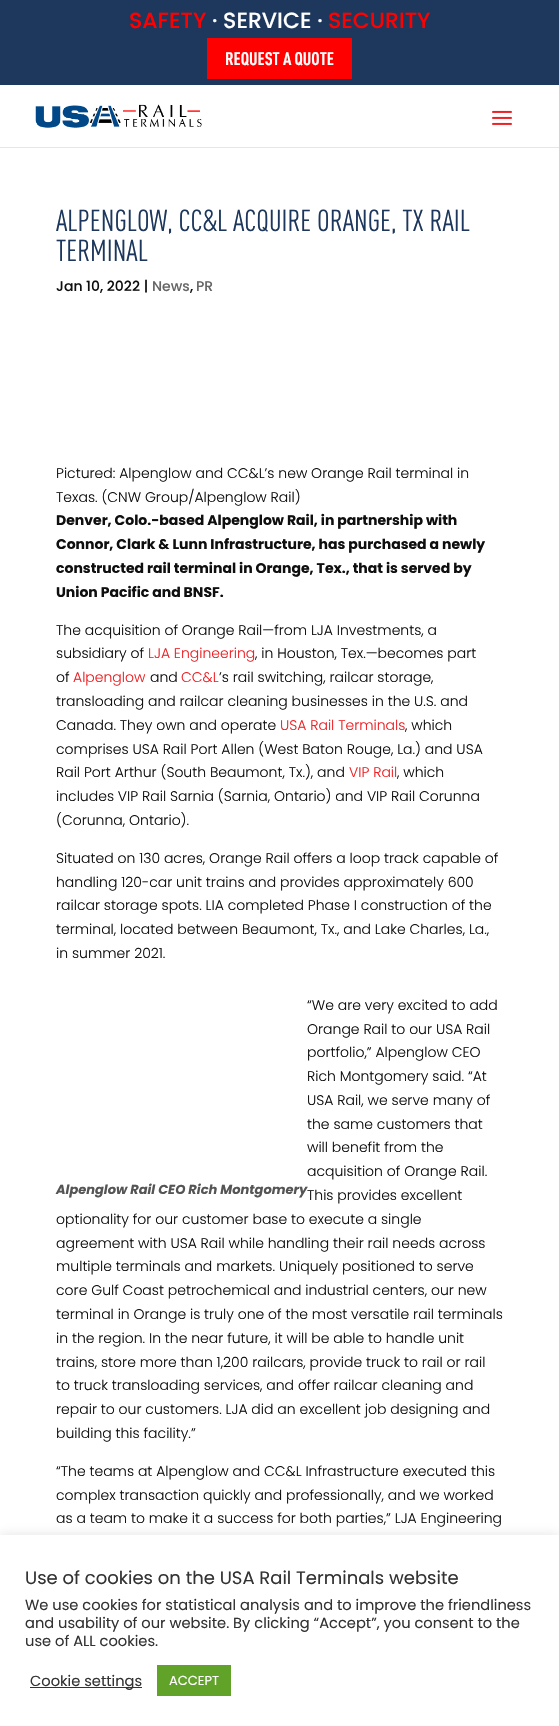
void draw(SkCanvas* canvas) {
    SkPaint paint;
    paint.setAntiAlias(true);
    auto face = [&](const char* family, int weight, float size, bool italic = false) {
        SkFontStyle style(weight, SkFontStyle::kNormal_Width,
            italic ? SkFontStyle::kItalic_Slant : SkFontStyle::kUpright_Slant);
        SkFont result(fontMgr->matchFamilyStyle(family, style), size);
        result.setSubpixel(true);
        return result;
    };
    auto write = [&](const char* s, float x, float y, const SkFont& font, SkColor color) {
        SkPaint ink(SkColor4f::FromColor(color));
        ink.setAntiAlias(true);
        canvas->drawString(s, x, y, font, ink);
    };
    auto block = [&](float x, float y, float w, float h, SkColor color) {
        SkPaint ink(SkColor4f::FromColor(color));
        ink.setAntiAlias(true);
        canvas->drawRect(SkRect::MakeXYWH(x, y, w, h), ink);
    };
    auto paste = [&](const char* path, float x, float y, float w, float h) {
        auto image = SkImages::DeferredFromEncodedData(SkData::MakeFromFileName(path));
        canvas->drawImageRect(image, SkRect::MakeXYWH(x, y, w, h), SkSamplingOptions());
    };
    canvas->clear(SK_ColorWHITE);
    block(0, 147, 559, 1, SkColorSetRGB(230, 230, 230));
    block(0, 0, 559, 85, SkColorSetRGB(30, 55, 92));
    auto kFont1 = face("Poppins", 500, 22);
    write("SAFETY", 129, 28, kFont1, SkColorSetRGB(255, 0, 0));
    write("· SERVICE ·", 212, 28, kFont1, SK_ColorWHITE);
    write("SECURITY", 328, 28, kFont1, SkColorSetRGB(255, 0, 0));
    block(207, 38, 145, 41, SkColorSetRGB(255, 0, 0));
    auto kFont2 = face("DIN", 700, 18);
    write("REQUEST A QUOTE", 225, 65, kFont2, SK_ColorWHITE);
    paste("pic1.png", 35, 104, 167, 24);
    paste("pic2.png", 492, 110, 20, 15);
    auto kFont3 = face("DIN", 400, 30);
    write("ALPENGLOW, CC&L ACQUIRE ORANGE, TX RAIL", 56, 231, kFont3, SkColorSetRGB(29, 55, 92));
    write("TERMINAL", 56, 261, kFont3, SkColorSetRGB(29, 55, 92));
    auto kFont4 = face("Poppins", 500, 14);
    write("Jan 10, 2022 |", 56, 291, kFont4, SkColorSetRGB(15, 15, 15));
    write("News", 152, 291, kFont4, SkColorSetRGB(102, 102, 102));
    write(",", 190, 291, kFont4, SkColorSetRGB(15, 15, 15));
    write("PR", 196, 291, kFont4, SkColorSetRGB(102, 102, 102));
    auto kFont5 = face("Poppins", 300, 14);
    write("Pictured: Alpenglow and CC&L’s new Orange Rail terminal in", 56, 478, kFont5, SkColorSetRGB(15, 15, 15));
    write("Texas. (CNW Group/Alpenglow Rail)", 56, 502, kFont5, SkColorSetRGB(15, 15, 15));
    auto kFont6 = face("Poppins", 700, 14);
    write("Denver, Colo.-based Alpenglow Rail, in partnership with", 56, 525, kFont6, SkColorSetRGB(15, 15, 15));
    write("Connor, Clark & Lunn Infrastructure, has purchased a newly", 56, 549, kFont6, SkColorSetRGB(15, 15, 15));
    write("constructed rail terminal in Orange, Tex., that is served by", 56, 573, kFont6, SkColorSetRGB(15, 15, 15));
    write("Union Pacific and BNSF.", 56, 597, kFont6, SkColorSetRGB(15, 15, 15));
    write("The acquisition of Orange Rail—from LJA Investments, a", 56, 635, kFont5, SkColorSetRGB(15, 15, 15));
    write("subsidiary of", 56, 658, kFont5, SkColorSetRGB(15, 15, 15));
    write("LJA Engineering", 148, 658, kFont5, SkColorSetRGB(237, 32, 36));
    write(", in Houston, Tex.—becomes part", 255, 658, kFont5, SkColorSetRGB(15, 15, 15));
    write("of", 56, 682, kFont5, SkColorSetRGB(15, 15, 15));
    write("Alpenglow", 73, 682, kFont5, SkColorSetRGB(237, 32, 36));
    write("and", 150, 682, kFont5, SkColorSetRGB(15, 15, 15));
    write("CC&L", 181, 682, kFont5, SkColorSetRGB(237, 32, 36));
    write("’s rail switching, railcar storage,", 219, 682, kFont5, SkColorSetRGB(15, 15, 15));
    write("transloading and railcar cleaning businesses in the U.S. and", 56, 706, kFont5, SkColorSetRGB(15, 15, 15));
    write("Canada. They own and operate", 56, 730, kFont5, SkColorSetRGB(15, 15, 15));
    write("USA Rail Terminals", 280, 730, kFont5, SkColorSetRGB(237, 32, 36));
    write(", which", 405, 730, kFont5, SkColorSetRGB(15, 15, 15));
    write("comprises USA Rail Port Allen (West Baton Rouge, La.) and USA", 56, 754, kFont5, SkColorSetRGB(15, 15, 15));
    write("Rail Port Arthur (South Beaumont, Tx.), and", 56, 777, kFont5, SkColorSetRGB(15, 15, 15));
    write("VIP Rail", 349, 777, kFont5, SkColorSetRGB(237, 32, 36));
    write(", which", 397, 777, kFont5, SkColorSetRGB(15, 15, 15));
    write("includes VIP Rail Sarnia (Sarnia, Ontario) and VIP Rail Corunna", 56, 801, kFont5, SkColorSetRGB(15, 15, 15));
    write("(Corunna, Ontario).", 56, 825, kFont5, SkColorSetRGB(15, 15, 15));
    write("Situated on 130 acres, Orange Rail offers a loop track capable of", 56, 863, kFont5, SkColorSetRGB(15, 15, 15));
    write("handling 120-car unit trains and provides approximately 600", 56, 887, kFont5, SkColorSetRGB(15, 15, 15));
    write("railcar storage spots. LIA completed Phase I construction of the", 56, 910, kFont5, SkColorSetRGB(15, 15, 15));
    write("terminal, located between Beaumont, Tx., and Lake Charles, La.,", 56, 934, kFont5, SkColorSetRGB(15, 15, 15));
    write("in summer 2021.", 56, 958, kFont5, SkColorSetRGB(15, 15, 15));
    write("“We are very excited to add", 307, 1010, kFont5, SkColorSetRGB(15, 15, 15));
    write("Orange Rail to our USA Rail", 307, 1034, kFont5, SkColorSetRGB(15, 15, 15));
    write("portfolio,” Alpenglow CEO", 307, 1057, kFont5, SkColorSetRGB(15, 15, 15));
    write("Rich Montgomery said. “At", 307, 1081, kFont5, SkColorSetRGB(15, 15, 15));
    write("USA Rail, we serve many of", 307, 1105, kFont5, SkColorSetRGB(15, 15, 15));
    write("the same customers that", 307, 1129, kFont5, SkColorSetRGB(15, 15, 15));
    write("will benefit from the", 307, 1152, kFont5, SkColorSetRGB(15, 15, 15));
    write("acquisition of Orange Rail.", 307, 1176, kFont5, SkColorSetRGB(15, 15, 15));
    auto kFont7 = face("Poppins", 700, 13, true);
    write("Alpenglow Rail CEO Rich Montgomery", 56, 1194, kFont7, SkColorSetRGB(85, 85, 85));
    write("This provides excellent", 307, 1200, kFont5, SkColorSetRGB(15, 15, 15));
    write("optionality for our customer base to execute a single", 56, 1224, kFont5, SkColorSetRGB(15, 15, 15));
    write("agreement with USA Rail while handling their rail needs across", 56, 1248, kFont5, SkColorSetRGB(15, 15, 15));
    write("multiple terminals and markets. Uniquely positioned to serve", 56, 1271, kFont5, SkColorSetRGB(15, 15, 15));
    write("core Gulf Coast petrochemical and industrial centers, our new", 56, 1295, kFont5, SkColorSetRGB(15, 15, 15));
    write("terminal in Orange is truly one of the most versatile rail terminals", 56, 1319, kFont5, SkColorSetRGB(15, 15, 15));
    write("in the region. In the near future, it will be able to handle unit", 56, 1343, kFont5, SkColorSetRGB(15, 15, 15));
    write("trains, store more than 1,200 railcars, provide truck to rail or rail", 56, 1367, kFont5, SkColorSetRGB(15, 15, 15));
    write("to truck transloading services, and offer railcar cleaning and", 56, 1390, kFont5, SkColorSetRGB(15, 15, 15));
    write("repair to our customers. LJA did an excellent job designing and", 56, 1414, kFont5, SkColorSetRGB(15, 15, 15));
    write("building this facility.”", 56, 1438, kFont5, SkColorSetRGB(15, 15, 15));
    write("“The teams at Alpenglow and CC&L Infrastructure executed this", 56, 1476, kFont5, SkColorSetRGB(15, 15, 15));
    write("complex transaction quickly and professionally, and we worked", 56, 1500, kFont5, SkColorSetRGB(15, 15, 15));
    write("as a team to make it a success for both parties,” LJA Engineering", 56, 1523, kFont5, SkColorSetRGB(15, 15, 15));
    paint.setColor(SkColorSetARGB(77, 172, 171, 171));
    paint.setMaskFilter(SkMaskFilter::MakeBlur(kNormal_SkBlurStyle, 5));
    canvas->drawRect(SkRect::MakeXYWH(0, 1534, 559, 191), paint);
    paint.setMaskFilter(nullptr);
    block(0, 1535, 559, 191, SK_ColorWHITE);
    auto kFont8 = face("Poppins", 400, 18);
    write("Use of cookies on the USA Rail Terminals website", 25, 1584, kFont8, SkColorSetRGB(51, 51, 51));
    auto kFont9 = face("Poppins", 400, 14.65f);
    write("We use cookies for statistical analysis and to improve the friendliness", 25, 1610, kFont9, SkColorSetRGB(51, 51, 51));
    write("and usability of our website. By clicking “Accept”, you consent to the", 25, 1628, kFont9, SkColorSetRGB(51, 51, 51));
    write("use of ALL cookies.", 25, 1646, kFont9, SkColorSetRGB(51, 51, 51));
    block(30, 1687, 112, 1, SkColorSetRGB(51, 51, 51));
    write("Cookie settings", 30, 1686, kFont9, SkColorSetRGB(51, 51, 51));
    block(157, 1665, 74, 31, SkColorSetRGB(97, 162, 41));
    auto kFont10 = face("Poppins", 400, 13);
    write("ACCEPT", 169, 1685, kFont10, SK_ColorWHITE);
}
